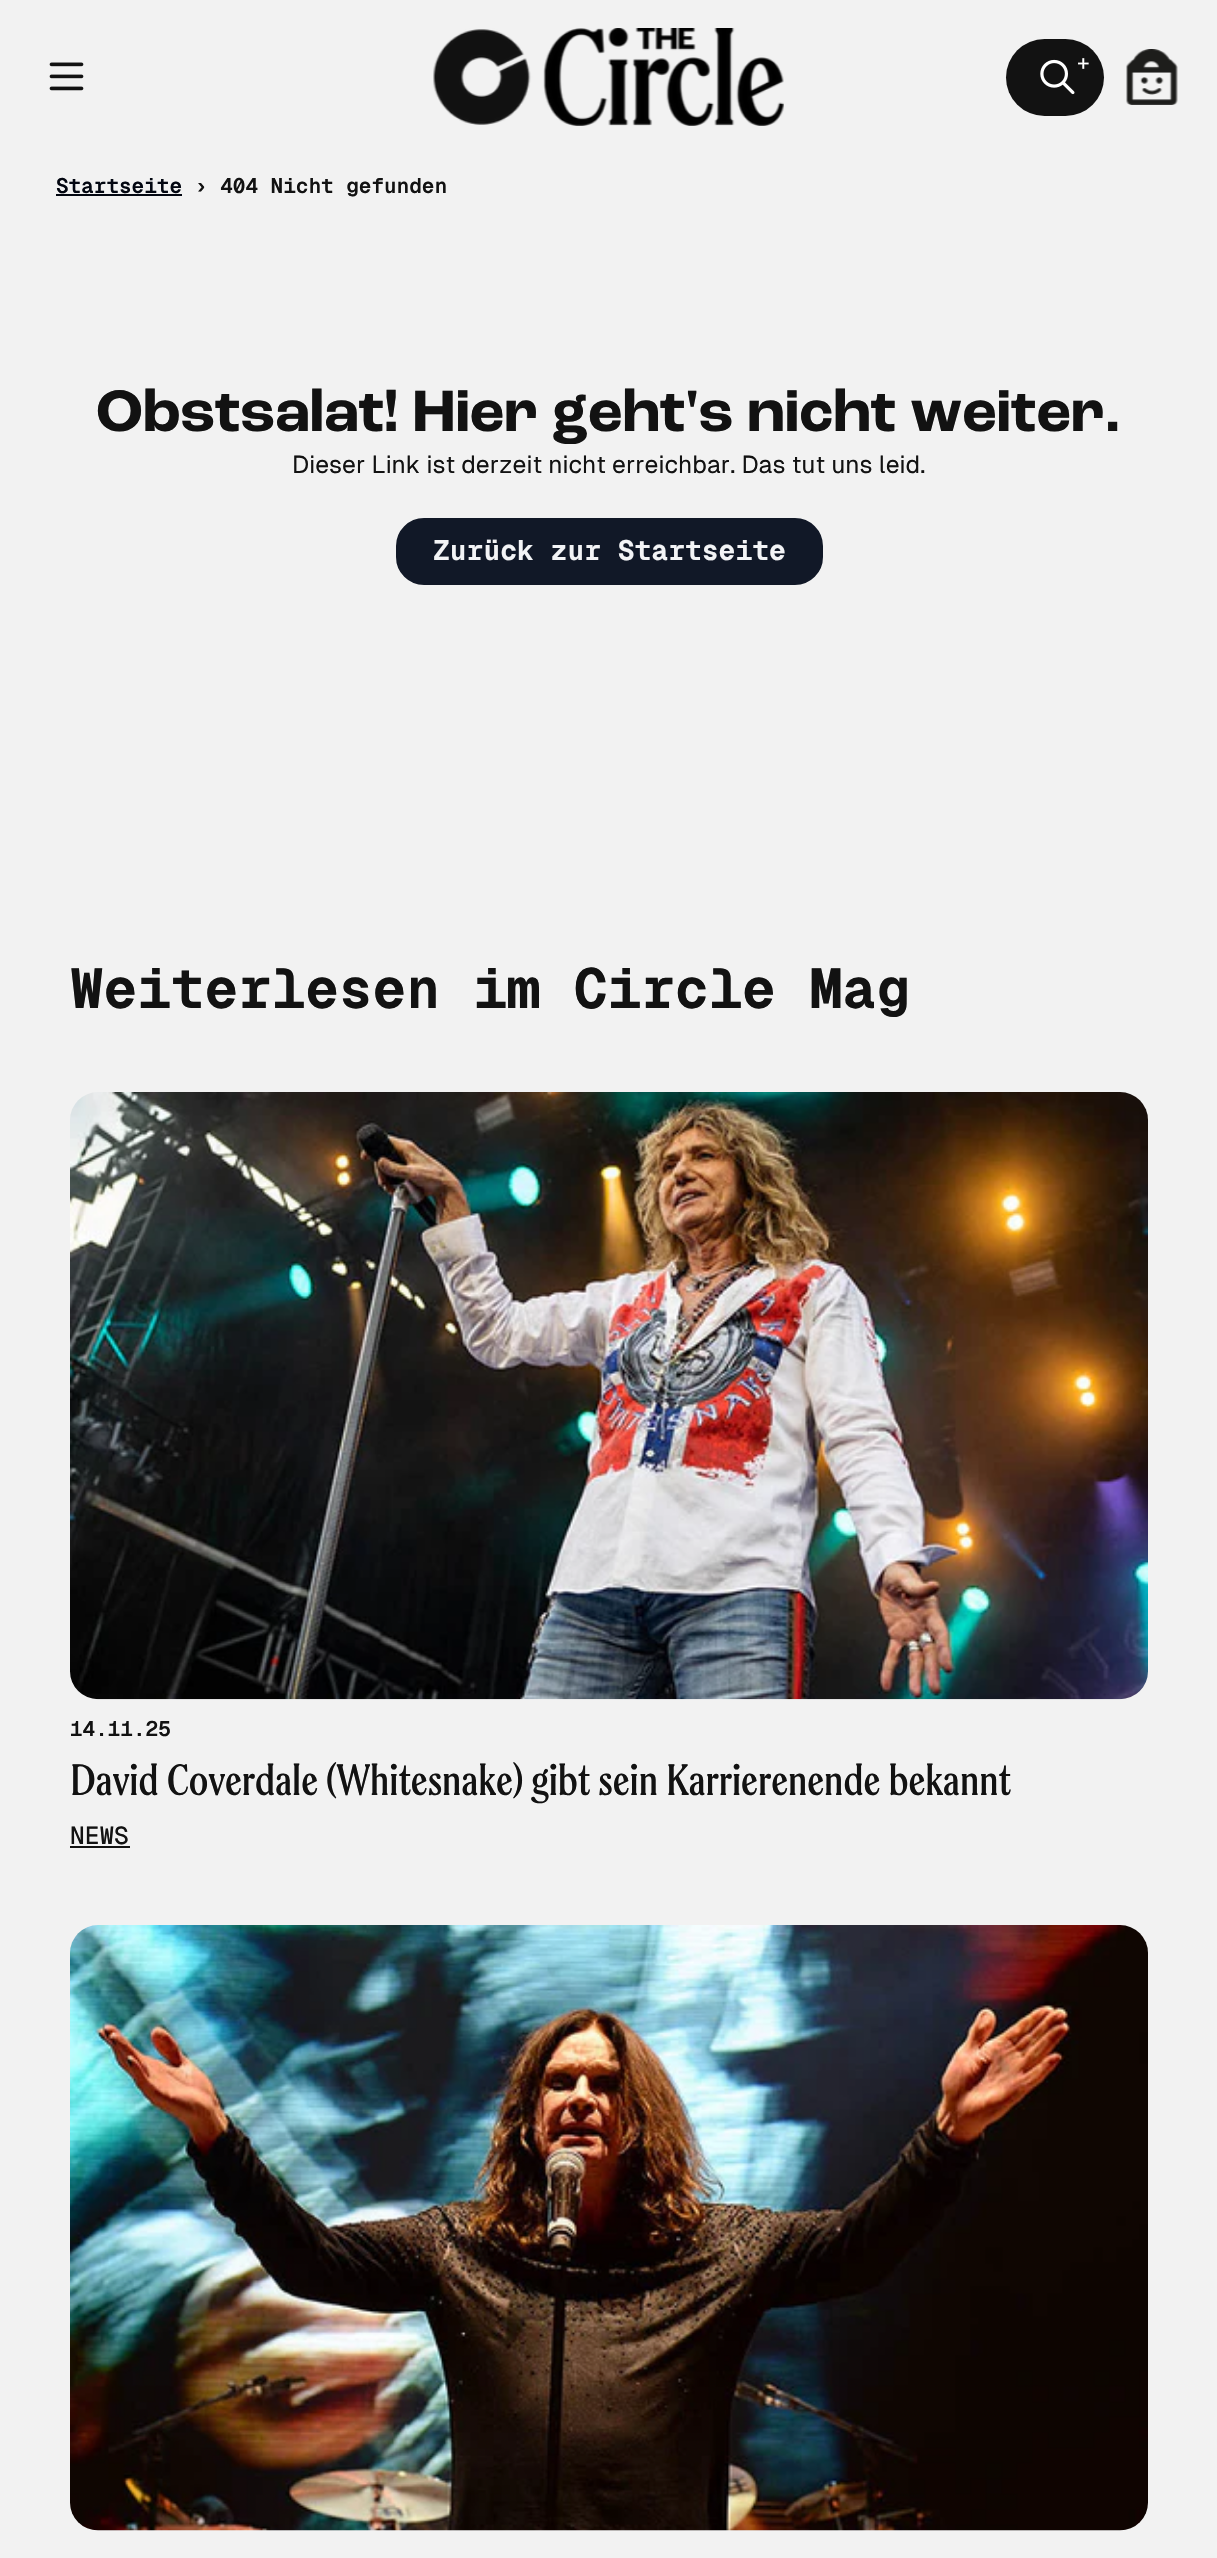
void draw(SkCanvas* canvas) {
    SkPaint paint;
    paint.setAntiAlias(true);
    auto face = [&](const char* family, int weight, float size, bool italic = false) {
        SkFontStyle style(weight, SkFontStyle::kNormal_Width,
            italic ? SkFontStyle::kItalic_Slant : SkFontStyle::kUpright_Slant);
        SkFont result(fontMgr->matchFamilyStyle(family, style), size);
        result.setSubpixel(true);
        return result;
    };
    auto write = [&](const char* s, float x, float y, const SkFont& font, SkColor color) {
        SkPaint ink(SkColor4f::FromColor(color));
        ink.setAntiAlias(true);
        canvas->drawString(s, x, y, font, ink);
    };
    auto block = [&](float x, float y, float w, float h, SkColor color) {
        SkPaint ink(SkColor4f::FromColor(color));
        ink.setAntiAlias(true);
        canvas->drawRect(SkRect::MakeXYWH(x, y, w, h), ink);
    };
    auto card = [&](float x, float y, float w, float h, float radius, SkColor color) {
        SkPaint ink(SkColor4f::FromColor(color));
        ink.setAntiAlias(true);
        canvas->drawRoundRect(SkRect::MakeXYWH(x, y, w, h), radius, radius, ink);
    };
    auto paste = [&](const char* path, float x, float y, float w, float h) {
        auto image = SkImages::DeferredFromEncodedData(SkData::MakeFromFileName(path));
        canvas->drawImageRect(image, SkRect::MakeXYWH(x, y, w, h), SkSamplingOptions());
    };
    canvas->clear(SkColorSetRGB(242, 242, 242));
    paste("pic1.png", 49, 62, 35, 29);
    paste("pic2.png", 433, 28, 351, 98);
    card(1006, 39, 98, 77, 38.5f, SkColorSetRGB(18, 18, 18));
    paste("pic3.png", 1040, 59, 35, 36);
    auto kFont1 = face("Geist", 400, 22);
    write("+", 1077, 70, kFont1, SK_ColorWHITE);
    paste("pic4.png", 1126, 49, 52, 56);
    auto kFont2 = face("Geist Mono", 700, 21);
    write("Startseite", 56, 193, kFont2, SkColorSetRGB(3, 7, 17));
    block(56, 194, 126, 2, SkColorSetRGB(3, 7, 17));
    write("› 404 Nicht gefunden", 195, 193, kFont2, SkColorSetRGB(18, 18, 18));
    auto kFont3 = face("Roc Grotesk", 700, 61.25f);
    write("Obstsalat! Hier geht's nicht weiter.", 96, 431, kFont3, SkColorSetRGB(18, 18, 18));
    auto kFont4 = face("Geist", 400, 24.5f);
    write("Dieser Link ist derzeit nicht erreichbar. Das tut uns leid.", 292, 473, kFont4, SkColorSetRGB(18, 18, 18));
    paint.setColor(SkColorSetRGB(17, 24, 39));
    canvas->drawRoundRect(SkRect::MakeXYWH(397, 519, 425, 65), 27, 27, paint);
    paint.setStyle(SkPaint::kStroke_Style);
    paint.setStrokeWidth(2);
    canvas->drawRoundRect(SkRect::MakeXYWH(397, 519, 425, 65), 27, 27, paint);
    auto kFont5 = face("Geist Mono", 800, 28);
    write("Zurück zur Startseite", 433, 560, kFont5, SkColorSetRGB(243, 244, 246));
    auto kFont6 = face("Geist Mono", 800, 56);
    write("Weiterlesen im Circle Mag", 70, 1008, kFont6, SkColorSetRGB(18, 18, 18));
    paste("pic5.png", 70, 1092, 1078, 608);
    write("14.11.25", 70, 1736, kFont2, SkColorSetRGB(18, 18, 18));
    auto kFont7 = face("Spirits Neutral", 300, 42);
    write("David Coverdale (Whitesnake) gibt sein Karrierenende bekannt", 70, 1795, kFont7, SkColorSetRGB(18, 18, 18));
    auto kFont8 = face("Geist Mono", 500, 24.5f);
    write("NEWS", 70, 1844, kFont8, SkColorSetRGB(18, 18, 18));
    block(70, 1846, 60, 2, SkColorSetRGB(18, 18, 18));
    paste("pic6.png", 70, 1925, 1078, 606);
}
